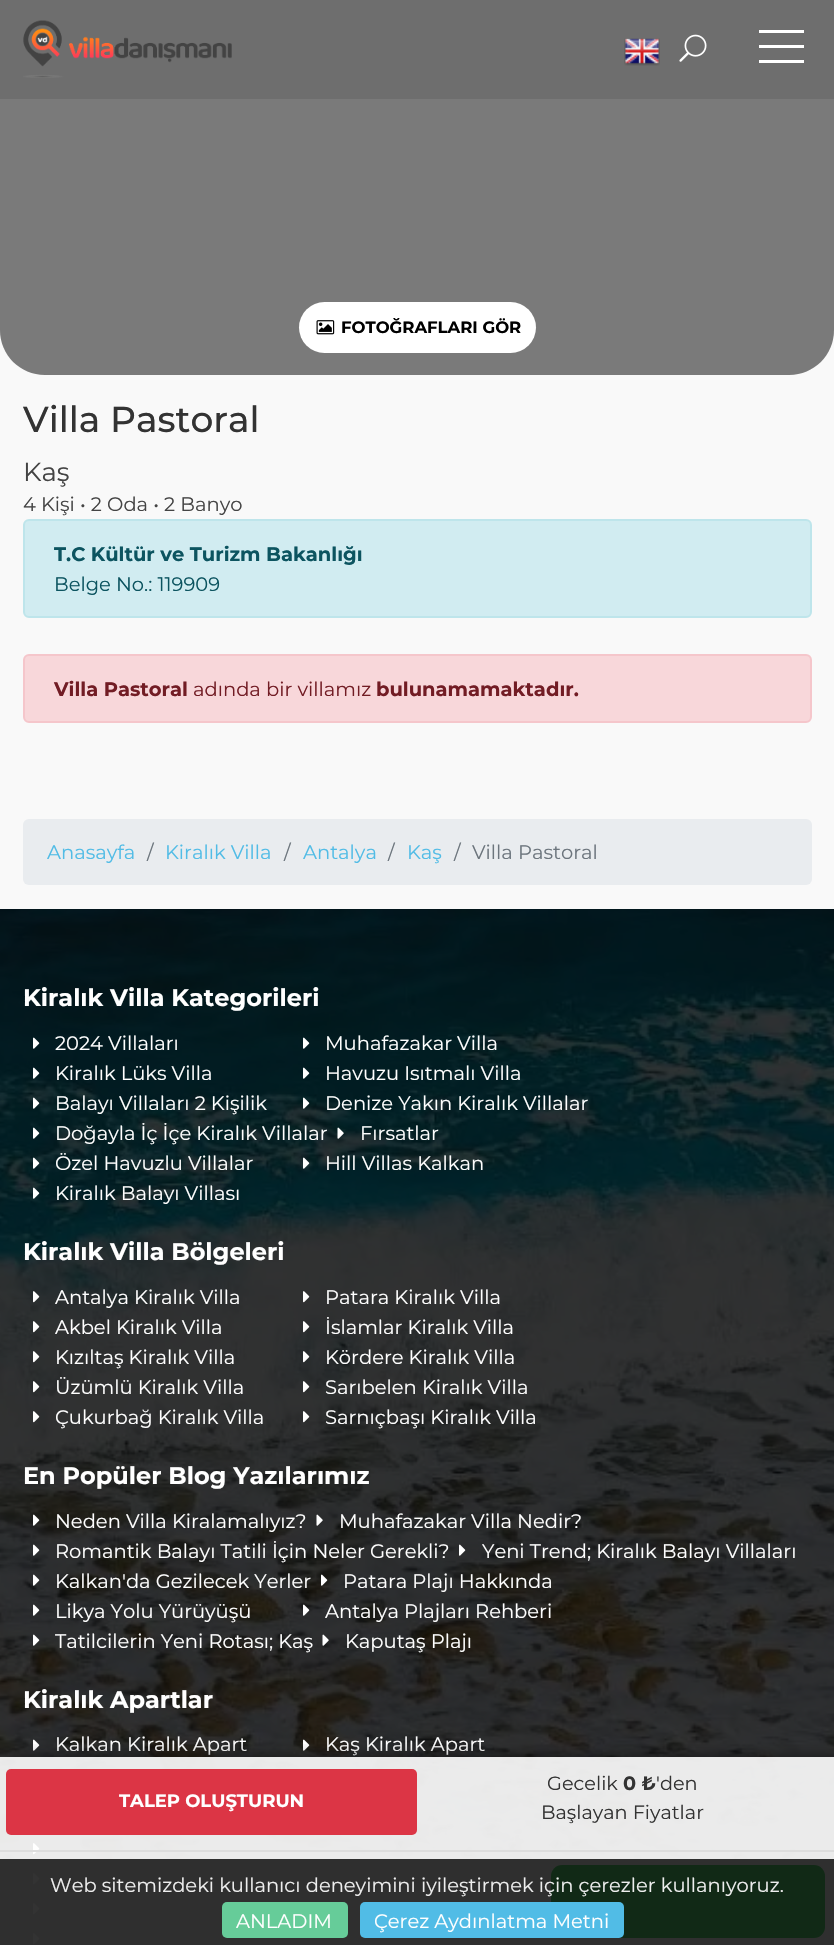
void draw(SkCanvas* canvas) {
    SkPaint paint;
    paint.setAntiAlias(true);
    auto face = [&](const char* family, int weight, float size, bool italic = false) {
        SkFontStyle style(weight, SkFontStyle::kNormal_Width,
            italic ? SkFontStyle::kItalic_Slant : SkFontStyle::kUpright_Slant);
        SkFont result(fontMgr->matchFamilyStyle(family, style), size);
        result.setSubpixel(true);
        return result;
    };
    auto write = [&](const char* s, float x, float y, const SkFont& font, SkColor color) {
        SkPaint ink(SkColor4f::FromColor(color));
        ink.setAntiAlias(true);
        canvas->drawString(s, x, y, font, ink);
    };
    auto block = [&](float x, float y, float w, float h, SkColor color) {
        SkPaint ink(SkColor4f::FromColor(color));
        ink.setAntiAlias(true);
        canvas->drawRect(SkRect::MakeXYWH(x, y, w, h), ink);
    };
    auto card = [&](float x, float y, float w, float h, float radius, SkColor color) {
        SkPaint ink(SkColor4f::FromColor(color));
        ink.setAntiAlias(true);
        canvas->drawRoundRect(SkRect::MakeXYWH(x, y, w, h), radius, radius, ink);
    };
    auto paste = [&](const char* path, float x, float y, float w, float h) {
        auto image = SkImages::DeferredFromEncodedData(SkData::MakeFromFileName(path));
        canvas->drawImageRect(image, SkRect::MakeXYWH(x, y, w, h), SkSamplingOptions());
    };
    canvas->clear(SkColorSetRGB(249, 249, 249));
    paint.setColor(SkColorSetRGB(204, 204, 204));
    canvas->drawPath(SkPathBuilder().moveTo(0, 0).lineTo(834, 0).lineTo(834, 330).cubicTo(834, 355, 814, 375, 789, 375).lineTo(45, 375).cubicTo(20, 375, 0, 355, 0, 330).close().detach(), paint);
    paint.setColor(SkColorSetARGB(102, 0, 0, 0));
    canvas->drawPath(SkPathBuilder().moveTo(0, 0).lineTo(834, 0).lineTo(834, 330).cubicTo(834, 355, 814, 375, 789, 375).lineTo(45, 375).cubicTo(20, 375, 0, 355, 0, 330).close().detach(), paint);
    block(0, 0, 834, 99, SkColorSetRGB(110, 110, 110));
    paste("pic1.png", 23, 20, 209, 58);
    paste("pic2.png", 624, 38, 36, 28);
    paste("pic3.png", 679, 34, 28, 28);
    block(759, 45, 45, 3, SK_ColorWHITE);
    block(759, 30, 45, 3, SK_ColorWHITE);
    block(759, 60, 45, 3, SK_ColorWHITE);
    card(299, 302, 237, 51, 25.5f, SK_ColorWHITE);
    paste("pic4.png", 316, 320, 19, 15);
    auto kFont1 = face("Montserrat", 700, 16.5f);
    write("FOTOĞRAFLARI GÖR", 341, 333, kFont1, SK_ColorBLACK);
    auto kFont2 = face("Montserrat", 500, 36);
    write("Villa Pastoral", 23, 432, kFont2, SkColorSetRGB(51, 51, 51));
    auto kFont3 = face("Montserrat", 400, 26);
    write("Kaş", 23, 481, kFont3, SkColorSetRGB(68, 68, 68));
    auto kFont4 = face("Montserrat", 400, 19.5f);
    write("4 Kişi • 2 Oda • 2 Banyo", 23, 511, kFont4, SkColorSetRGB(68, 68, 68));
    paint.setColor(SkColorSetRGB(209, 236, 241));
    canvas->drawRoundRect(SkRect::MakeXYWH(24, 520, 787, 97), 5, 5, paint);
    paint.setStyle(SkPaint::kStroke_Style);
    paint.setStrokeWidth(2);
    paint.setColor(SkColorSetRGB(190, 229, 235));
    canvas->drawRoundRect(SkRect::MakeXYWH(24, 520, 787, 97), 5, 5, paint);
    auto kFont5 = face("Montserrat", 700, 19.5f);
    write("T.C Kültür ve Turizm Bakanlığı", 54, 561, kFont5, SkColorSetRGB(12, 84, 96));
    write("Belge No.: 119909", 54, 591, kFont4, SkColorSetRGB(12, 84, 96));
    paint.setStyle(SkPaint::kFill_Style);
    paint.setColor(SkColorSetRGB(248, 215, 218));
    canvas->drawRoundRect(SkRect::MakeXYWH(24, 655, 787, 67), 5, 5, paint);
    paint.setStyle(SkPaint::kStroke_Style);
    paint.setColor(SkColorSetRGB(245, 198, 203));
    canvas->drawRoundRect(SkRect::MakeXYWH(24, 655, 787, 67), 5, 5, paint);
    write("Villa Pastoral", 54, 696, kFont5, SkColorSetRGB(114, 28, 36));
    write("adında bir villamız", 193, 696, kFont4, SkColorSetRGB(114, 28, 36));
    write("bulunamamaktadır.", 376, 696, kFont5, SkColorSetRGB(114, 28, 36));
    card(23, 819, 789, 66, 6, SkColorSetRGB(233, 236, 239));
    write("Anasayfa", 47, 859, kFont4, SkColorSetRGB(81, 188, 230));
    write("/", 147, 859, kFont4, SkColorSetRGB(108, 117, 125));
    write("Kiralık Villa", 165, 859, kFont4, SkColorSetRGB(81, 188, 230));
    write("/", 284, 859, kFont4, SkColorSetRGB(108, 117, 125));
    write("Antalya", 303, 859, kFont4, SkColorSetRGB(81, 188, 230));
    write("/", 388, 859, kFont4, SkColorSetRGB(108, 117, 125));
    write("Kaş", 407, 859, kFont4, SkColorSetRGB(81, 188, 230));
    write("/", 454, 859, kFont4, SkColorSetRGB(108, 117, 125));
    write("Villa Pastoral", 472, 859, kFont4, SkColorSetRGB(108, 117, 125));
    paste("pic5.png", 0, 909, 834, 1036);
    auto kFont6 = face("Montserrat", 700, 24);
    write("Kiralık Villa Kategorileri", 23, 1006, kFont6, SK_ColorWHITE);
    paste("pic6.png", 33, 1037, 7, 12);
    write("2024 Villaları", 55, 1050, kFont4, SK_ColorWHITE);
    paste("pic7.png", 303, 1037, 7, 12);
    write("Muhafazakar Villa", 325, 1050, kFont4, SK_ColorWHITE);
    paste("pic8.png", 33, 1067, 7, 12);
    write("Kiralık Lüks Villa", 55, 1080, kFont4, SK_ColorWHITE);
    paste("pic9.png", 303, 1067, 7, 12);
    write("Havuzu Isıtmalı Villa", 325, 1080, kFont4, SK_ColorWHITE);
    paste("pic10.png", 33, 1097, 7, 12);
    write("Balayı Villaları 2 Kişilik", 55, 1110, kFont4, SK_ColorWHITE);
    paste("pic11.png", 303, 1097, 7, 12);
    write("Denize Yakın Kiralık Villalar", 325, 1110, kFont4, SK_ColorWHITE);
    paste("pic12.png", 33, 1127, 7, 12);
    write("Doğayla İç İçe Kiralık Villalar", 55, 1140, kFont4, SK_ColorWHITE);
    paste("pic13.png", 337, 1127, 7, 12);
    write("Fırsatlar", 360, 1140, kFont4, SK_ColorWHITE);
    paste("pic14.png", 33, 1157, 7, 12);
    write("Özel Havuzlu Villalar", 55, 1170, kFont4, SK_ColorWHITE);
    paste("pic15.png", 303, 1157, 7, 12);
    write("Hill Villas Kalkan", 325, 1170, kFont4, SK_ColorWHITE);
    paste("pic16.png", 33, 1187, 7, 12);
    write("Kiralık Balayı Villası", 55, 1200, kFont4, SK_ColorWHITE);
    write("Kiralık Villa Bölgeleri", 23, 1260, kFont6, SK_ColorWHITE);
    paste("pic17.png", 33, 1291, 7, 12);
    write("Antalya Kiralık Villa", 55, 1304, kFont4, SK_ColorWHITE);
    paste("pic18.png", 303, 1291, 7, 12);
    write("Patara Kiralık Villa", 325, 1304, kFont4, SK_ColorWHITE);
    paste("pic19.png", 33, 1321, 7, 12);
    write("Akbel Kiralık Villa", 55, 1334, kFont4, SK_ColorWHITE);
    paste("pic20.png", 303, 1321, 7, 12);
    write("İslamlar Kiralık Villa", 325, 1334, kFont4, SK_ColorWHITE);
    paste("pic21.png", 33, 1351, 7, 12);
    write("Kızıltaş Kiralık Villa", 55, 1364, kFont4, SK_ColorWHITE);
    paste("pic22.png", 303, 1351, 7, 12);
    write("Kördere Kiralık Villa", 325, 1364, kFont4, SK_ColorWHITE);
    paste("pic23.png", 33, 1381, 7, 12);
    write("Üzümlü Kiralık Villa", 55, 1394, kFont4, SK_ColorWHITE);
    paste("pic24.png", 303, 1381, 7, 12);
    write("Sarıbelen Kiralık Villa", 325, 1394, kFont4, SK_ColorWHITE);
    paste("pic25.png", 33, 1411, 7, 12);
    write("Çukurbağ Kiralık Villa", 55, 1424, kFont4, SK_ColorWHITE);
    paste("pic26.png", 303, 1411, 7, 12);
    write("Sarnıçbaşı Kiralık Villa", 325, 1424, kFont4, SK_ColorWHITE);
    write("En Popüler Blog Yazılarımız", 23, 1484, kFont6, SK_ColorWHITE);
    paste("pic27.png", 33, 1514, 7, 12);
    write("Neden Villa Kiralamalıyız?", 55, 1528, kFont4, SK_ColorWHITE);
    paste("pic28.png", 316, 1514, 7, 12);
    write("Muhafazakar Villa Nedir?", 339, 1528, kFont4, SK_ColorWHITE);
    paste("pic29.png", 33, 1544, 7, 12);
    write("Romantik Balayı Tatili İçin Neler Gerekli?", 55, 1558, kFont4, SK_ColorWHITE);
    paste("pic30.png", 459, 1544, 7, 12);
    write("Yeni Trend; Kiralık Balayı Villaları", 482, 1558, kFont4, SK_ColorWHITE);
    paste("pic31.png", 33, 1574, 7, 12);
    write("Kalkan'da Gezilecek Yerler", 55, 1588, kFont4, SK_ColorWHITE);
    paste("pic32.png", 321, 1574, 7, 12);
    write("Patara Plajı Hakkında", 343, 1588, kFont4, SK_ColorWHITE);
    paste("pic33.png", 33, 1604, 7, 12);
    write("Likya Yolu Yürüyüşü", 55, 1618, kFont4, SK_ColorWHITE);
    paste("pic34.png", 303, 1604, 7, 12);
    write("Antalya Plajları Rehberi", 325, 1618, kFont4, SK_ColorWHITE);
    paste("pic35.png", 33, 1634, 7, 12);
    write("Tatilcilerin Yeni Rotası; Kaş", 55, 1648, kFont4, SK_ColorWHITE);
    paste("pic36.png", 322, 1634, 7, 12);
    write("Kaputaş Plajı", 345, 1648, kFont4, SK_ColorWHITE);
    write("Kiralık Apartlar", 23, 1708, kFont6, SK_ColorWHITE);
    paste("pic37.png", 33, 1739, 7, 12);
    write("Kalkan Kiralık Apart", 55, 1751, kFont4, SK_ColorWHITE);
    paste("pic38.png", 303, 1739, 7, 12);
    write("Kaş Kiralık Apart", 325, 1751, kFont4, SK_ColorWHITE);
    paste("pic39.png", 33, 1843, 7, 12);
    paste("pic40.png", 33, 1873, 7, 12);
    paste("pic41.png", 33, 1903, 7, 12);
    paste("pic42.png", 33, 1933, 7, 12);
    canvas->save();
    canvas->clipRect(SkRect::MakeXYWH(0, 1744, 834, 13));
    paint.setStyle(SkPaint::kFill_Style);
    paint.setColor(SkColorSetARGB(128, 0, 0, 0));
    paint.setMaskFilter(SkMaskFilter::MakeBlur(kNormal_SkBlurStyle, 7.5f));
    canvas->drawRect(SkRect::MakeXYWH(9, 1757, 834, 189), paint);
    paint.setMaskFilter(nullptr);
    canvas->restore();
    block(0, 1757, 834, 188, SkColorSetARGB(230, 255, 255, 255));
    card(6, 1769, 411, 66, 5, SkColorSetRGB(220, 53, 69));
    auto kFont7 = face("Montserrat", 700, 18);
    write("TALEP OLUŞTURUN", 119, 1807, kFont7, SK_ColorWHITE);
    auto kFont8 = face("Montserrat", 400, 19.25f);
    write("Gecelik", 547, 1790, kFont8, SkColorSetRGB(51, 51, 51));
    auto kFont9 = face("Montserrat", 700, 19.25f);
    write("0 ₺", 623, 1790, kFont9, SkColorSetRGB(51, 51, 51));
    write("'den", 656, 1790, kFont8, SkColorSetRGB(51, 51, 51));
    write("Başlayan Fiyatlar", 541, 1819, kFont8, SkColorSetRGB(51, 51, 51));
    block(0, 1850, 834, 2, SkColorSetRGB(221, 221, 221));
    card(551, 1865, 274, 73, 11, SkColorSetRGB(85, 205, 108));
    block(0, 1859, 834, 86, SkColorSetARGB(204, 0, 0, 0));
    write("Web sitemizdeki kullanıcı deneyimini iyileştirmek için çerezler kullanıyoruz.", 50, 1892, kFont4, SkColorSetRGB(238, 238, 238));
    card(222, 1902, 126, 36, 5, SkColorSetRGB(102, 204, 153));
    write("ANLADIM", 236, 1928, kFont4, SK_ColorWHITE);
    card(360, 1902, 264, 36, 5, SkColorSetRGB(81, 188, 230));
    write("Çerez Aydınlatma Metni", 374, 1928, kFont4, SK_ColorWHITE);
}
